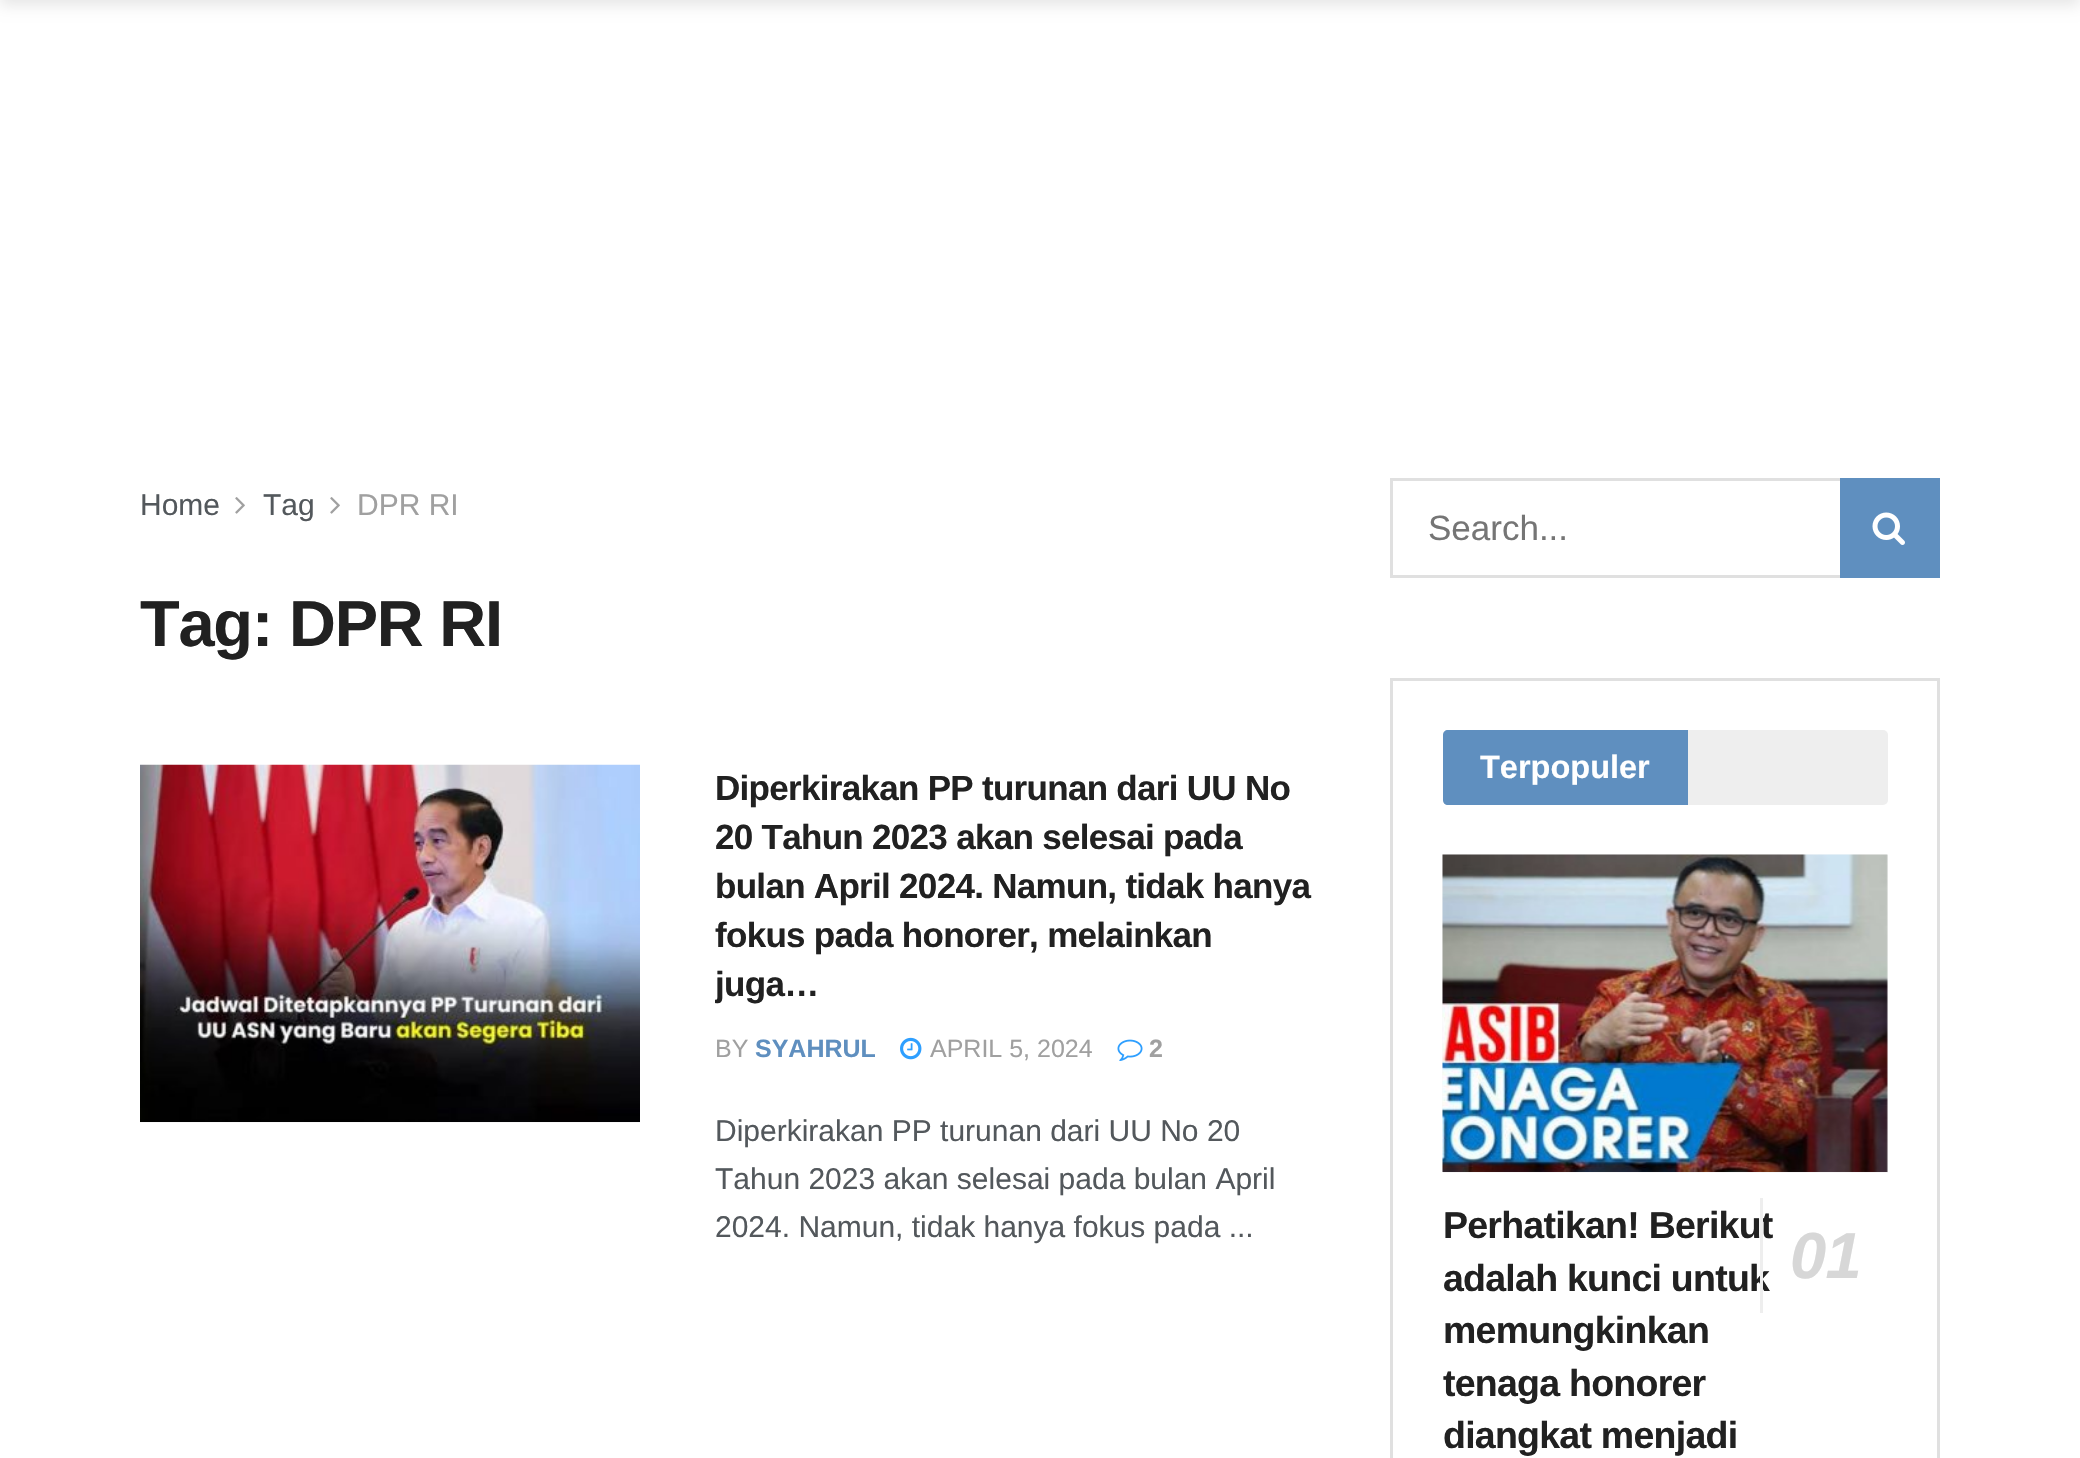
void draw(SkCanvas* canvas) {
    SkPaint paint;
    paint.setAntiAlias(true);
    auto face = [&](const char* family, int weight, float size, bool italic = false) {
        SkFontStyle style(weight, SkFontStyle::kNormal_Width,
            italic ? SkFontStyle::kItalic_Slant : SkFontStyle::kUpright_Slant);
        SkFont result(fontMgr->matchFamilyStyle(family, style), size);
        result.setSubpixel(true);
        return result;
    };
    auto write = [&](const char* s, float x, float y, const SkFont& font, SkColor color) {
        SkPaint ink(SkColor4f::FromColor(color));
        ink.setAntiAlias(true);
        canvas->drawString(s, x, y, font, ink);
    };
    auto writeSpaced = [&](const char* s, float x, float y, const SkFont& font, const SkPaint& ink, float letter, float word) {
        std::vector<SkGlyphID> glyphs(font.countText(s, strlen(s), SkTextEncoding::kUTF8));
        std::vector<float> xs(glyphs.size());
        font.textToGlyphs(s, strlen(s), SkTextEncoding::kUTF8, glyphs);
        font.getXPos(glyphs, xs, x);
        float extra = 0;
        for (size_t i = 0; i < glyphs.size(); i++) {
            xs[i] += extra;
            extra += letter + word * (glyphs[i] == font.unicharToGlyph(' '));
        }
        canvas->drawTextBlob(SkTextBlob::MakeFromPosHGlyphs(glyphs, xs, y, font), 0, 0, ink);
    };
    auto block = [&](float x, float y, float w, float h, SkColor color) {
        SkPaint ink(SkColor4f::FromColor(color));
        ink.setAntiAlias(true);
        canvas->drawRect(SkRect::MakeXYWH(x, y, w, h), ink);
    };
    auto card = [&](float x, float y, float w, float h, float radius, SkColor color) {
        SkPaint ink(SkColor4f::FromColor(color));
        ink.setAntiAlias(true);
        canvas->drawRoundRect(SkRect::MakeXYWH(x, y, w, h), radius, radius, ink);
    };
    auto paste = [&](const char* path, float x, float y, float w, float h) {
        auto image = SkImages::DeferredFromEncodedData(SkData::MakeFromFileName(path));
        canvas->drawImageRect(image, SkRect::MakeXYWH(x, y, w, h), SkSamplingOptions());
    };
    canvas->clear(SK_ColorWHITE);
    paint.setColor(SkColorSetARGB(26, 0, 0, 0));
    paint.setMaskFilter(SkMaskFilter::MakeBlur(kNormal_SkBlurStyle, 7.5f));
    canvas->drawRect(SkRect::MakeXYWH(0, -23, 2080, 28), paint);
    paint.setMaskFilter(nullptr);
    auto kFont1 = face("Liberation Sans", 400, 30);
    write("Home", 140, 515, kFont1, SkColorSetRGB(83, 88, 92));
    paste("pic1.png", 235, 497, 10, 17);
    write("Tag", 263, 515, kFont1, SkColorSetRGB(83, 88, 92));
    paste("pic1.png", 330, 497, 10, 17);
    write("DPR RI", 357, 515, kFont1, SkColorSetRGB(160, 160, 160));
    auto kFont2 = face("Liberation Sans", 700, 65);
    paint.setColor(SkColorSetRGB(33, 33, 33));
    writeSpaced("Tag: DPR RI", 140, 646, kFont2, paint, -1.25f, 0);
    block(140, 1122, 500, 1, SkColorSetRGB(247, 247, 247));
    paste("pic2.png", 140, 764, 500, 358);
    auto kFont3 = face("Liberation Sans", 700, 35);
    writeSpaced("Diperkirakan PP turunan dari UU No", 715, 800, kFont3, paint, -0.7f, 0);
    writeSpaced("20 Tahun 2023 akan selesai pada", 715, 849, kFont3, paint, -0.7f, 0);
    writeSpaced("bulan April 2024. Namun, tidak hanya", 715, 898, kFont3, paint, -0.7f, 0);
    writeSpaced("fokus pada honorer, melainkan", 715, 947, kFont3, paint, -0.7f, 0);
    canvas->save();
    canvas->clipRect(SkRect::MakeXYWH(715, 765, 600, 488));
    writeSpaced("juga…", 715, 996, kFont3, paint, -0.7f, 0);
    canvas->restore();
    auto kFont4 = face("Liberation Sans", 400, 25);
    write("BY", 715, 1057, kFont4, SkColorSetRGB(160, 160, 160));
    auto kFont5 = face("Liberation Sans", 700, 25);
    write("SYAHRUL", 755, 1057, kFont5, SkColorSetRGB(95, 143, 191));
    paste("pic3.png", 900, 1037, 22, 23);
    write("APRIL 5, 2024", 930, 1057, kFont4, SkColorSetRGB(160, 160, 160));
    paste("pic4.png", 1117, 1039, 26, 22);
    write("2", 1149, 1057, kFont5, SkColorSetRGB(160, 160, 160));
    write("Diperkirakan PP turunan dari UU No 20", 715, 1141, kFont1, SkColorSetRGB(83, 88, 92));
    write("Tahun 2023 akan selesai pada bulan April", 715, 1189, kFont1, SkColorSetRGB(83, 88, 92));
    write("2024. Namun, tidak hanya fokus pada ...", 715, 1237, kFont1, SkColorSetRGB(83, 88, 92));
    paint.setStyle(SkPaint::kStroke_Style);
    paint.setStrokeWidth(3);
    paint.setColor(SkColorSetRGB(224, 224, 224));
    canvas->drawRect(SkRect::MakeXYWH(1391.5f, 479.5f, 547, 97), paint);
    auto kFont6 = face("Liberation Sans", 400, 35);
    write("Search...", 1428, 540, kFont6, SkColorSetRGB(117, 117, 117));
    block(1840, 478, 100, 100, SkColorSetRGB(95, 143, 191));
    paste("pic5.png", 1872, 512, 33, 33);
    canvas->drawRect(SkRect::MakeXYWH(1391.5f, 679.5f, 547, 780), paint);
    card(1443, 730, 445, 75, 5, SkColorSetRGB(238, 238, 238));
    paint.setStyle(SkPaint::kFill_Style);
    paint.setColor(SkColorSetRGB(95, 143, 191));
    canvas->drawPath(SkPathBuilder().moveTo(1448, 730).lineTo(1688, 730).lineTo(1688, 805).lineTo(1448, 805).cubicTo(1445, 805, 1443, 803, 1443, 800).lineTo(1443, 735).cubicTo(1443, 732, 1445, 730, 1448, 730).close().detach(), paint);
    auto kFont7 = face("Liberation Sans", 700, 32.5f);
    write("Terpopuler", 1480, 778, kFont7, SK_ColorWHITE);
    block(1443, 855, 445, 318, SkColorSetRGB(247, 247, 247));
    paste("pic6.png", 1442, 854, 445, 318);
    paste("pic7.png", 1442, 854, 446, 318);
    auto kFont8 = face("Liberation Sans", 700, 37.5f);
    paint.setColor(SkColorSetRGB(33, 33, 33));
    writeSpaced("Perhatikan! Berikut", 1443, 1238, kFont8, paint, -0.75f, 0);
    writeSpaced("adalah kunci untuk", 1443, 1291, kFont8, paint, -0.75f, 0);
    block(1760, 1198, 3, 115, SkColorSetRGB(238, 238, 238));
    auto kFont9 = face("Liberation Sans", 700, 65, true);
    paint.setColor(SkColorSetRGB(215, 215, 215));
    writeSpaced("01", 1790, 1278, kFont9, paint, -0.75f, 0);
    paint.setColor(SkColorSetRGB(33, 33, 33));
    writeSpaced("memungkinkan", 1443, 1343, kFont8, paint, -0.75f, 0);
    writeSpaced("tenaga honorer", 1443, 1396, kFont8, paint, -0.75f, 0);
    writeSpaced("diangkat menjadi", 1443, 1448, kFont8, paint, -0.75f, 0);
}
